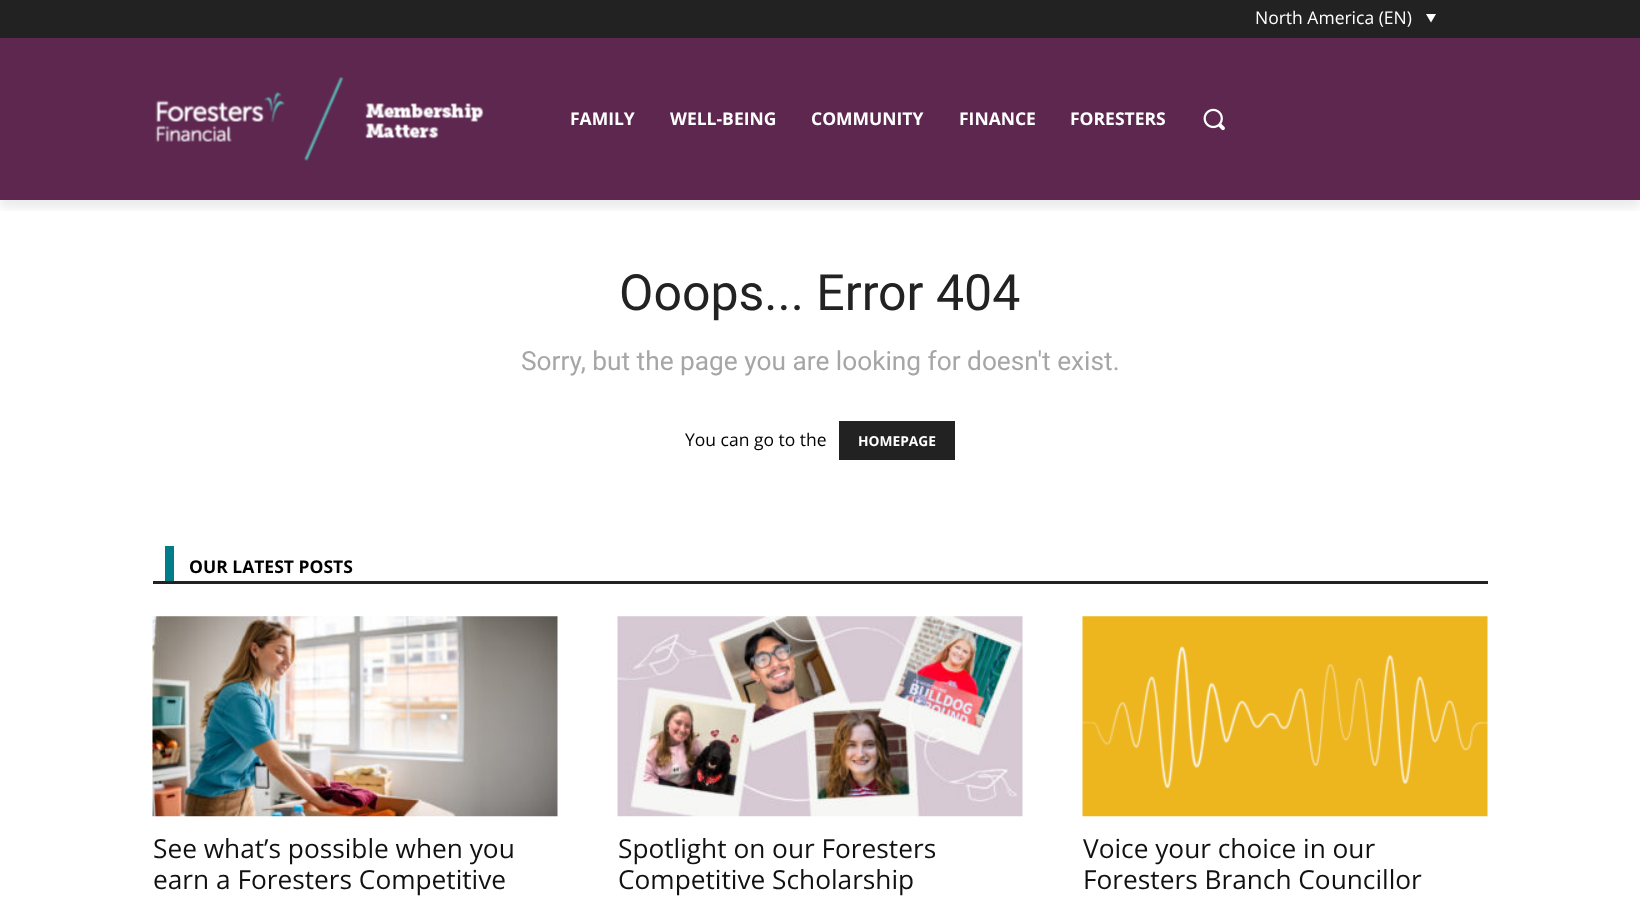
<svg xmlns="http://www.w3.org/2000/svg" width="1640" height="903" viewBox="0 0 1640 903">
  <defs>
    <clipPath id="clip1"><path d="M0 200h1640v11H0z"/></clipPath>
  </defs>
  <rect width="100%" height="100%" fill="#fff"/>
  <path d="M0 0h1640v38H0z" fill="#222"/>
  <path d="M1426 14H1436L1431 22.5Z" fill="#fff"/>
  <path d="M0 38h1640v162H0z" fill="#5e2750"/>
  <image x="155" y="77" width="329" height="84" href="img/1.png"/>
  <g clip-path="url(#clip1)">
    <path d="M0 8h1640v200H0z" fill="#00000014" filter="blur(5px)"/>
  </g>
  <image x="1203" y="108" width="22" height="23" href="img/2.png"/>
  <path d="M839 421h116v39H839z" fill="#222"/>
  <path d="M153 581h1335v3H153z" fill="#222"/>
  <path d="M165 546h9v35H165z" fill="#017c89"/>
  <image x="152" y="616" width="406" height="201" href="img/3.png"/>
  <image x="617" y="616" width="406" height="201" href="img/4.png"/>
  <image x="1082" y="616" width="406" height="201" href="img/5.png"/>
  <text x="1255" y="24" font-family="Open Sans" font-size="17.5" fill="#fff">North America (EN)</text>
  <g font-family="Open Sans" font-size="17.5" font-weight="bold" fill="#fff">
    <text x="570" y="125">FAMILY</text>
    <text x="670" y="125">WELL-BEING</text>
    <text x="811" y="125">COMMUNITY</text>
    <text x="959" y="125">FINANCE</text>
    <text x="1070" y="125">FORESTERS</text>
  </g>
  <text x="619" y="310" font-family="Roboto" font-size="50" fill="#222">Ooops... Error 404</text>
  <text x="521" y="370" font-family="Roboto" font-size="26.25" fill="#a6a6a6">Sorry, but the page you are looking for doesn't exist.</text>
  <text x="685" y="446" font-family="Open Sans" font-size="17.5" fill="#000">You can go to the</text>
  <text x="858" y="446" font-family="Open Sans" font-size="13.75" font-weight="bold" fill="#fff">HOMEPAGE</text>
  <text x="189" y="573" font-family="Open Sans" font-size="17.5" font-weight="bold" fill="#000">OUR LATEST POSTS</text>
  <g font-family="Open Sans" font-size="26.25" fill="#111">
    <text x="153" y="858">See what’s possible when you</text>
    <text x="153" y="889">earn a Foresters Competitive</text>
    <text x="618" y="858">Spotlight on our Foresters</text>
    <text x="618" y="889">Competitive Scholarship</text>
    <text x="1083" y="858">Voice your choice in our</text>
    <text x="1083" y="889">Foresters Branch Councillor</text>
  </g>
</svg>
